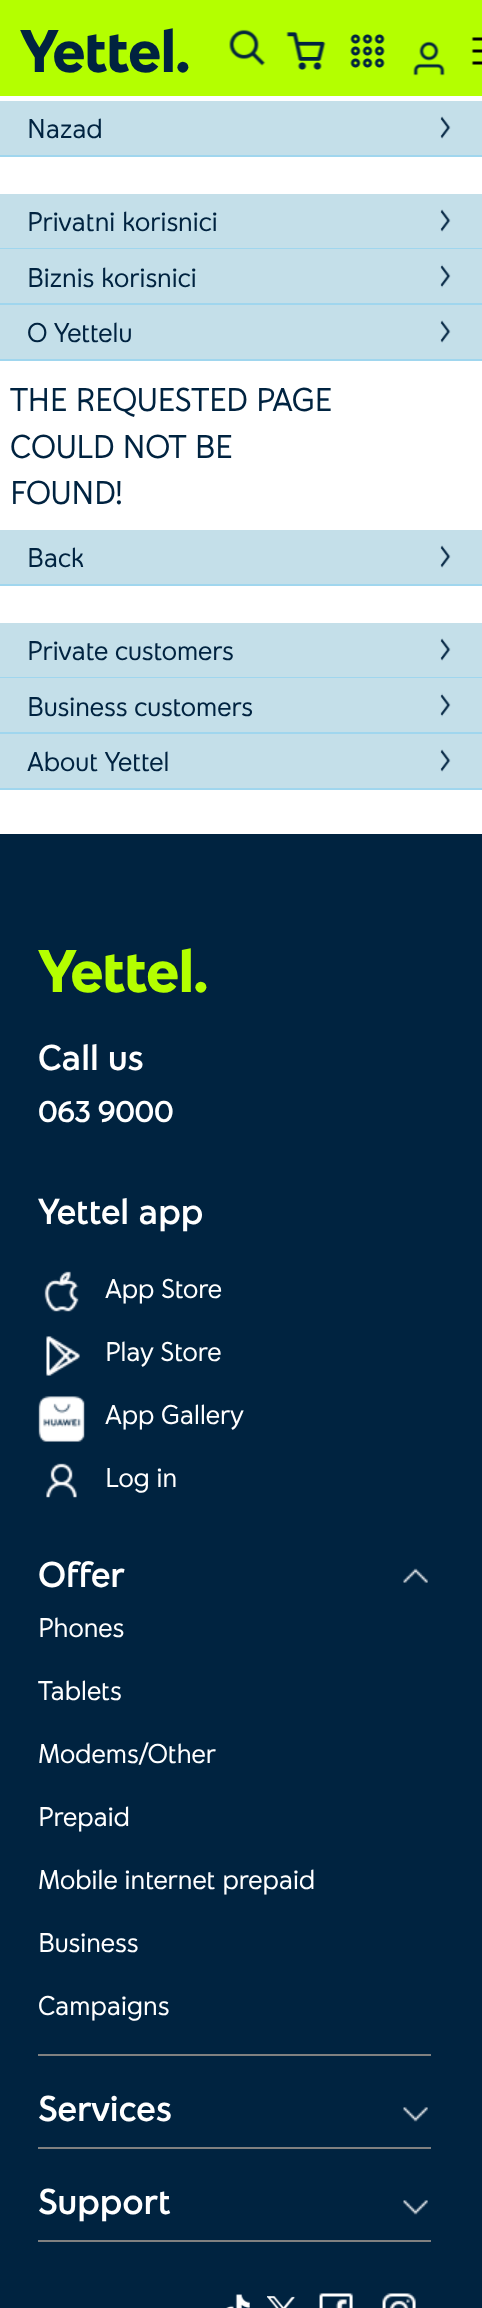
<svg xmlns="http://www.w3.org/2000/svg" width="482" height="2308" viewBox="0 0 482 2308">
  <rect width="100%" height="100%" fill="#fff"/>
  <path d="M0 0h482v96H0z" fill="#b4ff00"/>
  <image x="229" y="29" width="37" height="37" href="img/1.png"/>
  <image x="286" y="32" width="40" height="38" href="img/2.png"/>
  <image x="350" y="34" width="35" height="34" href="img/3.png"/>
  <image x="413" y="41" width="32" height="35" href="img/4.png"/>
  <image x="471" y="37" width="11" height="28" href="img/5.png"/>
  <path d="M0 101h482v54H0z" fill="#c4dfe9"/>
  <path d="M0 155h482v2H0z" fill="#a0d6ee"/>
  <image x="440" y="116" width="11" height="23" href="img/6.png"/>
  <path d="M0 194h482v54H0z" fill="#c4dfe9"/>
  <path d="M0 248h482v1H0z" fill="#a0d6ee"/>
  <image x="440" y="209" width="11" height="23" href="img/6.png"/>
  <path d="M0 249h482v54H0z" fill="#c4dfe9"/>
  <path d="M0 303h482v2H0z" fill="#a0d6ee"/>
  <image x="440" y="264" width="11" height="24" href="img/7.png"/>
  <path d="M0 305h482v54H0z" fill="#c4dfe9"/>
  <path d="M0 359h482v2H0z" fill="#a0d6ee"/>
  <image x="440" y="320" width="11" height="23" href="img/6.png"/>
  <path d="M0 530h482v54H0z" fill="#c4dfe9"/>
  <path d="M0 584h482v2H0z" fill="#a0d6ee"/>
  <image x="440" y="545" width="11" height="23" href="img/6.png"/>
  <path d="M0 623h482v54H0z" fill="#c4dfe9"/>
  <path d="M0 677h482v1H0z" fill="#a0d6ee"/>
  <image x="440" y="638" width="11" height="23" href="img/6.png"/>
  <path d="M0 678h482v54H0z" fill="#c4dfe9"/>
  <path d="M0 732h482v2H0z" fill="#a0d6ee"/>
  <image x="440" y="693" width="11" height="24" href="img/7.png"/>
  <path d="M0 734h482v54H0z" fill="#c4dfe9"/>
  <path d="M0 788h482v2H0z" fill="#a0d6ee"/>
  <image x="440" y="749" width="11" height="23" href="img/6.png"/>
  <path d="M0 834h482v1474H0z" fill="#002340"/>
  <image x="44" y="1271" width="35" height="41" href="img/8.png"/>
  <image x="46" y="1336" width="34" height="40" href="img/9.png"/>
  <image x="38" y="1396" width="47" height="46" href="img/10.png"/>
  <image x="46" y="1463" width="31" height="35" href="img/11.png"/>
  <image x="403" y="1568" width="25" height="15" href="img/12.png"/>
  <path d="M38 2054h393v2H38z" fill="#808080"/>
  <image x="403" y="2107" width="25" height="15" href="img/13.png"/>
  <path d="M38 2147h393v2H38z" fill="#808080"/>
  <image x="403" y="2200" width="25" height="15" href="img/13.png"/>
  <path d="M38 2240h393v2H38z" fill="#808080"/>
  <image x="226" y="2294" width="24" height="14" href="img/14.png"/>
  <image x="267" y="2296" width="29" height="12" href="img/15.png"/>
  <image x="319" y="2293" width="34" height="15" href="img/16.png"/>
  <image x="382" y="2293" width="34" height="15" href="img/17.png"/>
  <text x="20" y="72" font-family="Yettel" font-size="60" font-weight="bold" letter-spacing="-1.5" fill="#002340">Yettel.</text>
  <g font-family="Yettel" font-size="27" font-weight="300" letter-spacing="-0.4" fill="#002340">
    <text x="27" y="138">Nazad</text>
    <text x="27" y="231">Privatni korisnici</text>
    <text x="27" y="287">Biznis korisnici</text>
    <text x="27" y="342">O Yettelu</text>
  </g>
  <g font-family="Yettel" font-size="33" font-weight="300" letter-spacing="-0.4" fill="#002340">
    <text x="10" y="411">THE REQUESTED PAGE</text>
    <text x="10" y="458">COULD NOT BE</text>
    <text x="10" y="504">FOUND!</text>
  </g>
  <g font-family="Yettel" font-size="27" font-weight="300" letter-spacing="-0.4" fill="#002340">
    <text x="27" y="567">Back</text>
    <text x="27" y="660">Private customers</text>
    <text x="27" y="716">Business customers</text>
    <text x="27" y="771">About Yettel</text>
  </g>
  <text x="38" y="992" font-family="Yettel" font-size="60" font-weight="bold" letter-spacing="-1.5" fill="#b4ff00">Yettel.</text>
  <text x="38" y="1070" font-family="Yettel" font-size="36" letter-spacing="-0.4" fill="#fff">Call us</text>
  <text x="38" y="1122" font-family="Yettel" font-size="30" letter-spacing="-0.4" fill="#fff">063 9000</text>
  <text x="38" y="1224" font-family="Yettel" font-size="36" letter-spacing="-0.4" fill="#fff">Yettel app</text>
  <g font-family="Yettel" font-size="27" font-weight="300" letter-spacing="-0.4" fill="#fff">
    <text x="105" y="1298">App Store</text>
    <text x="105" y="1361">Play Store</text>
    <text x="105" y="1424">App Gallery</text>
    <text x="105" y="1487">Log in</text>
  </g>
  <text x="38" y="1587" font-family="Yettel" font-size="36" letter-spacing="-0.4" fill="#fff">Offer</text>
  <g font-family="Yettel" font-size="27" font-weight="300" letter-spacing="-0.4" fill="#fff">
    <text x="38" y="1637">Phones</text>
    <text x="38" y="1700">Tablets</text>
    <text x="38" y="1763">Modems/Other</text>
    <text x="38" y="1826">Prepaid</text>
    <text x="38" y="1889">Mobile internet prepaid</text>
    <text x="38" y="1952">Business</text>
    <text x="38" y="2015">Campaigns</text>
  </g>
  <g font-family="Yettel" font-size="36" letter-spacing="-0.4" fill="#fff">
    <text x="38" y="2121">Services</text>
    <text x="38" y="2214">Support</text>
  </g>
</svg>
